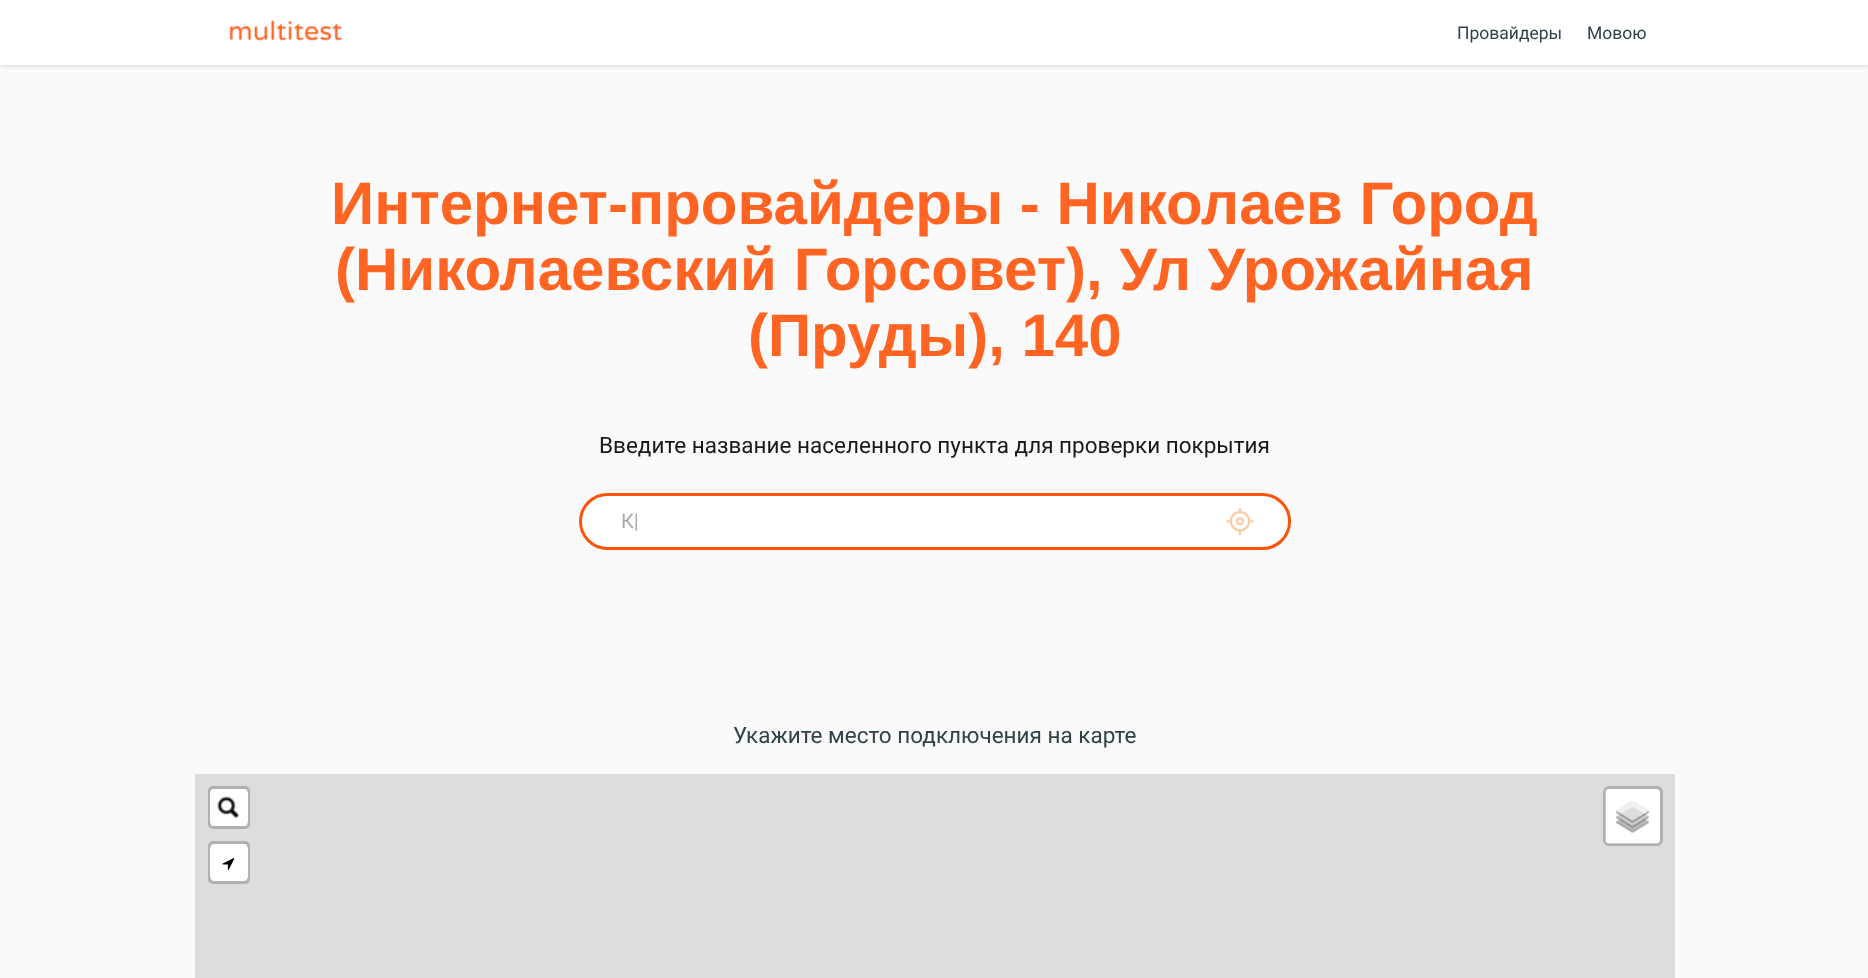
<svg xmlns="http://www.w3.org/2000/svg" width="1868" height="978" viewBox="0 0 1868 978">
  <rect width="100%" height="100%" fill="#fafafa"/>
  <path d="M0 1h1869v65H0z" fill="#00000026" filter="blur(2px)"/>
  <path d="M0 0h1868v65H0z" fill="#fff"/>
  <image x="229" y="20" width="113" height="21" href="img/1.png"/>
  <rect x="580.5" y="494.5" width="709" height="54" rx="27" fill="#fff" stroke="#ff5209" stroke-width="3"/>
  <image x="1226" y="508" width="28" height="27" href="img/2.png"/>
  <path d="M195 774h1480v204H195z" fill="#ddd"/>
  <rect x="210" y="789" width="38" height="37" rx="2.5" fill="#f8f8f8"/>
  <rect x="209.5" y="787.5" width="39" height="40" rx="3.5" fill="none" stroke="#00000033" stroke-width="3"/>
  <rect x="210" y="789" width="38" height="37" rx="5" fill="#fff"/>
  <image x="217" y="796" width="22" height="22" href="img/3.png"/>
  <rect x="209.5" y="842.5" width="39" height="40" rx="3.5" fill="none" stroke="#b1b1b1" stroke-width="3"/>
  <rect x="210" y="844" width="38" height="37" rx="5" fill="#fff"/>
  <image x="222" y="858" width="13" height="12" href="img/4.png"/>
  <rect x="1605" y="789" width="55" height="55" rx="4" fill="#fff"/>
  <rect x="1604.5" y="787.5" width="57" height="57" rx="4.5" fill="none" stroke="#00000033" stroke-width="3"/>
  <image x="1616" y="801" width="33" height="32" href="img/5.png"/>
  <g font-family="Roboto" font-size="17.5" fill="#2e4348">
    <text x="1457" y="39">Провайдеры</text>
    <text x="1587" y="39">Мовою</text>
  </g>
  <g font-family="Liberation Sans" font-size="60" font-weight="bold" fill="#ff6423">
    <text x="331" y="224">Интернет-провайдеры - Николаев Город</text>
    <text x="335" y="290">(Николаевский Горсовет), Ул Урожайная</text>
    <text x="748" y="356">(Пруды), 140</text>
  </g>
  <text x="599" y="453" font-family="Roboto" font-size="22.5" fill="#191919">Введите название населенного пункта для проверки покрытия</text>
  <text x="621" y="528" font-family="Roboto" font-size="20" fill="#a9a9a9">К|</text>
  <text x="733" y="743" font-family="Roboto" font-size="22.5" fill="#2e4348">Укажите место подключения на карте</text>
</svg>
